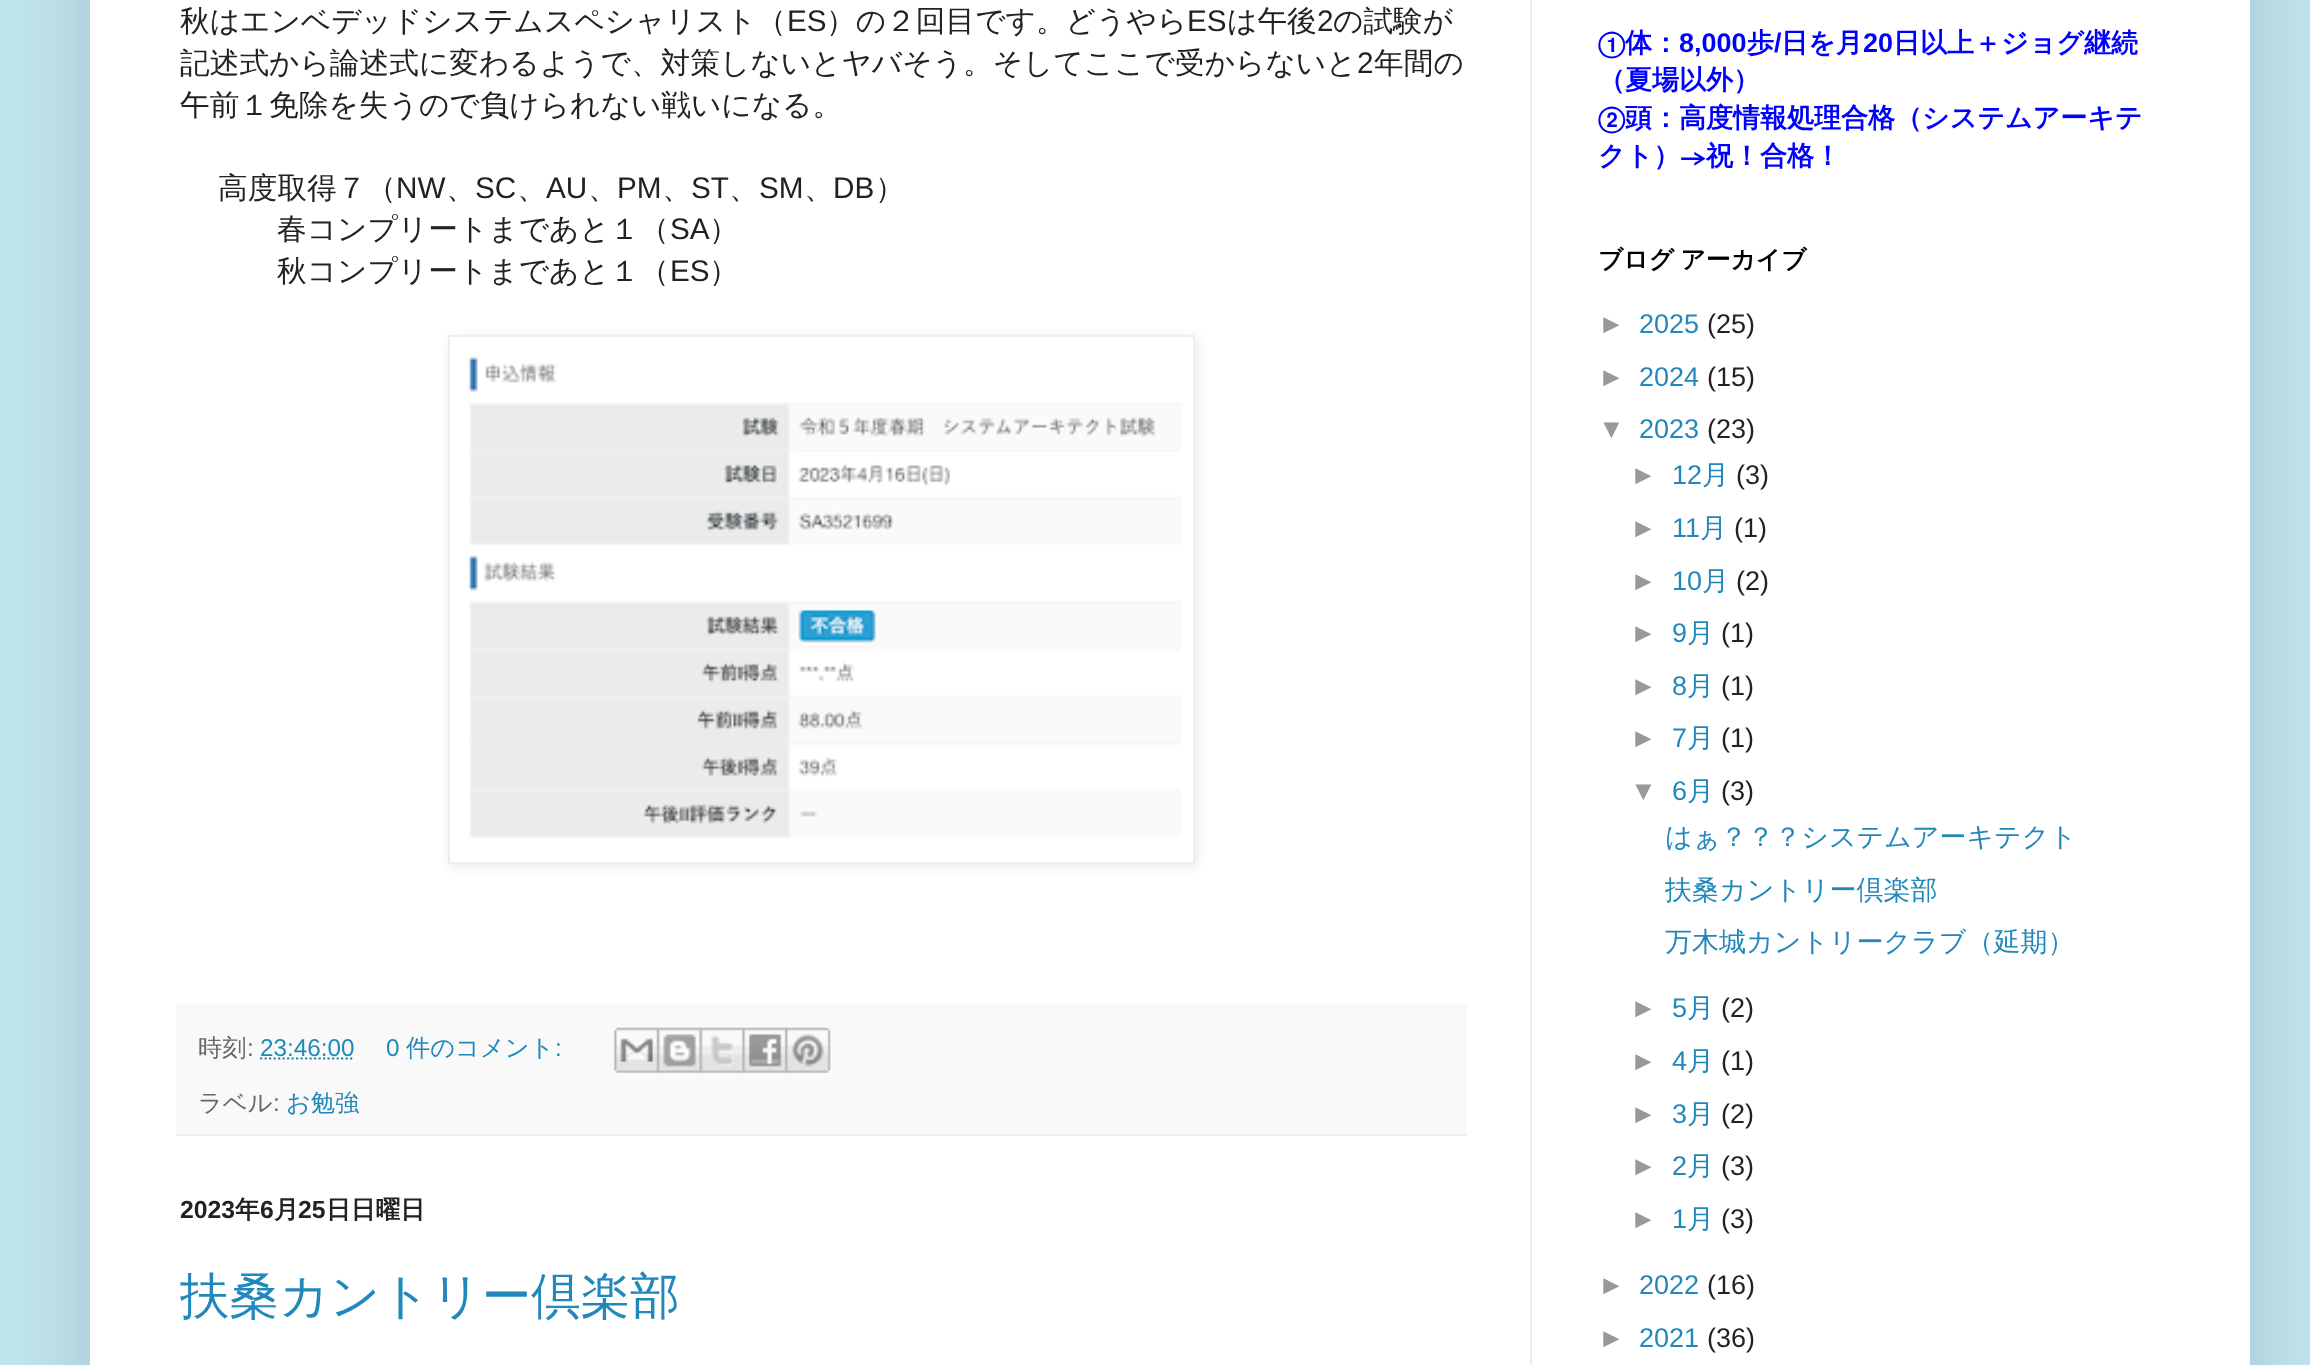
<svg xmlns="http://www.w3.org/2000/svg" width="2310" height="1365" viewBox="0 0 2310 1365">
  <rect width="100%" height="100%" fill="#c1e5ef"/>
  <path d="M90 -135h2160v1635H90z" fill="#00000026" filter="blur(45px)"/>
  <path d="M90 0h2160v1365H90z" fill="#fff"/>
  <path d="M1530 0h2v1365H1530z" fill="#eee"/>
  <path d="M450 338h747v528H450z" fill="#0000001a" filter="blur(5.5px)"/>
  <path d="M449 336h745v527H449z" fill="#fff" stroke="#eee" stroke-width="2"/>
  <image x="468" y="356" width="713" height="483" href="img/1.png"/>
  <path d="M176 1004h1291v130H176z" fill="#f9f9f9"/>
  <path d="M176 1134h1291v2H176z" fill="#eee"/>
  <path d="M260 1058.5H354.5" fill="none" stroke="#28b" stroke-width="2.2" stroke-dasharray="2.25 2.25"/>
  <image x="614" y="1027" width="46" height="46" href="img/2.png"/>
  <image x="657" y="1027" width="45" height="46" href="img/3.png"/>
  <image x="699" y="1027" width="46" height="46" href="img/4.png"/>
  <image x="742" y="1027" width="46" height="46" href="img/5.png"/>
  <image x="785" y="1027" width="46" height="46" href="img/6.png"/>
  <text x="180" y="31" font-family="WenQuanYi Zen Hei" font-size="29.7" font-weight="500" fill="#222">秋はエンベデッドシステムスペシャリスト（</text>
  <text x="787" y="31" font-family="Liberation Sans" font-size="29.7" fill="#222">ES</text>
  <text x="826" y="31" font-family="WenQuanYi Zen Hei" font-size="29.7" font-weight="500" fill="#222">）の２回目です。どうやら</text>
  <text x="1187" y="31" font-family="Liberation Sans" font-size="29.7" fill="#222">ES</text>
  <text x="1227" y="31" font-family="WenQuanYi Zen Hei" font-size="29.7" font-weight="500" fill="#222">は午後</text>
  <text x="1317" y="31" font-family="Liberation Sans" font-size="29.7" fill="#222">2</text>
  <g font-family="WenQuanYi Zen Hei" font-size="29.7" font-weight="500" fill="#222">
    <text x="1333" y="31">の試験が</text>
    <text x="180" y="73">記述式から論述式に変わるようで、対策しないとヤバそう。そしてここで受からないと</text>
  </g>
  <text x="1357" y="73" font-family="Liberation Sans" font-size="29.7" fill="#222">2</text>
  <g font-family="WenQuanYi Zen Hei" font-size="29.7" font-weight="500" fill="#222">
    <text x="1374" y="73">年間の</text>
    <text x="180" y="115">午前１免除を失うので負けられない戦いになる。</text>
    <text x="218" y="198">高度取得７（</text>
  </g>
  <text x="396" y="198" font-family="Liberation Sans" font-size="29.7" fill="#222">NW</text>
  <text x="446" y="198" font-family="WenQuanYi Zen Hei" font-size="29.7" font-weight="500" fill="#222">、</text>
  <text x="475" y="198" font-family="Liberation Sans" font-size="29.7" fill="#222">SC</text>
  <text x="517" y="198" font-family="WenQuanYi Zen Hei" font-size="29.7" font-weight="500" fill="#222">、</text>
  <text x="546" y="198" font-family="Liberation Sans" font-size="29.7" fill="#222">AU</text>
  <text x="588" y="198" font-family="WenQuanYi Zen Hei" font-size="29.7" font-weight="500" fill="#222">、</text>
  <text x="617" y="198" font-family="Liberation Sans" font-size="29.7" fill="#222">PM</text>
  <text x="662" y="198" font-family="WenQuanYi Zen Hei" font-size="29.7" font-weight="500" fill="#222">、</text>
  <text x="691" y="198" font-family="Liberation Sans" font-size="29.7" fill="#222">ST</text>
  <text x="729" y="198" font-family="WenQuanYi Zen Hei" font-size="29.7" font-weight="500" fill="#222">、</text>
  <text x="759" y="198" font-family="Liberation Sans" font-size="29.7" fill="#222">SM</text>
  <text x="804" y="198" font-family="WenQuanYi Zen Hei" font-size="29.7" font-weight="500" fill="#222">、</text>
  <text x="833" y="198" font-family="Liberation Sans" font-size="29.7" fill="#222">DB</text>
  <g font-family="WenQuanYi Zen Hei" font-size="29.7" font-weight="500" fill="#222">
    <text x="875" y="198">）</text>
    <text x="277" y="239">春コンプリートまであと１（</text>
  </g>
  <text x="670" y="239" font-family="Liberation Sans" font-size="29.7" fill="#222">SA</text>
  <g font-family="WenQuanYi Zen Hei" font-size="29.7" font-weight="500" fill="#222">
    <text x="709" y="239">）</text>
    <text x="277" y="281">秋コンプリートまであと１（</text>
  </g>
  <text x="670" y="281" font-family="Liberation Sans" font-size="29.7" fill="#222">ES</text>
  <text x="709" y="281" font-family="WenQuanYi Zen Hei" font-size="29.7" font-weight="500" fill="#222">）</text>
  <text x="198" y="1056" font-family="WenQuanYi Zen Hei" font-size="24.25" font-weight="500" fill="#666">時刻</text>
  <text x="247" y="1056" font-family="Liberation Sans" font-size="24.25" fill="#666">:</text>
  <g font-family="Liberation Sans" font-size="24.25" fill="#28b">
    <text x="260" y="1056">23:46:00</text>
    <text x="386" y="1056">0</text>
  </g>
  <text x="406" y="1056" font-family="WenQuanYi Zen Hei" font-size="24.25" font-weight="500" fill="#28b">件のコメント</text>
  <text x="555" y="1056" font-family="Liberation Sans" font-size="24.25" fill="#28b">:</text>
  <text x="198" y="1111" font-family="WenQuanYi Zen Hei" font-size="24.25" font-weight="500" fill="#666">ラベル</text>
  <text x="273" y="1111" font-family="Liberation Sans" font-size="24.25" fill="#666">:</text>
  <text x="286" y="1111" font-family="WenQuanYi Zen Hei" font-size="24.25" font-weight="500" fill="#28b">お勉強</text>
  <text x="180" y="1218" font-family="Liberation Sans" font-size="24.75" font-weight="bold" fill="#222">2023</text>
  <text x="235" y="1218" font-family="WenQuanYi Zen Hei" font-size="24.75" font-weight="bold" fill="#222">年</text>
  <text x="260" y="1218" font-family="Liberation Sans" font-size="24.75" font-weight="bold" fill="#222">6</text>
  <text x="274" y="1218" font-family="WenQuanYi Zen Hei" font-size="24.75" font-weight="bold" fill="#222">月</text>
  <text x="298" y="1218" font-family="Liberation Sans" font-size="24.75" font-weight="bold" fill="#222">25</text>
  <text x="326" y="1218" font-family="WenQuanYi Zen Hei" font-size="24.75" font-weight="bold" fill="#222">日日曜日</text>
  <text x="180" y="1313" font-family="WenQuanYi Zen Hei" font-size="49.5" font-weight="500" fill="#28b">扶桑カントリー倶楽部</text>
  <text x="1598" y="52" font-family="FreeSans" font-size="27" font-weight="600" fill="#00f">①</text>
  <text x="1625" y="52" font-family="WenQuanYi Zen Hei" font-size="27" font-weight="bold" fill="#00f">体：</text>
  <text x="1679" y="52" font-family="Liberation Sans" font-size="27" font-weight="bold" fill="#00f">8,000</text>
  <text x="1747" y="52" font-family="WenQuanYi Zen Hei" font-size="27" font-weight="bold" fill="#00f">歩</text>
  <text x="1774" y="52" font-family="Liberation Sans" font-size="27" font-weight="bold" fill="#00f">/</text>
  <text x="1781" y="52" font-family="WenQuanYi Zen Hei" font-size="27" font-weight="bold" fill="#00f">日を月</text>
  <text x="1863" y="52" font-family="Liberation Sans" font-size="27" font-weight="bold" fill="#00f">20</text>
  <g font-family="WenQuanYi Zen Hei" font-size="27" font-weight="bold" fill="#00f">
    <text x="1893" y="52">日以上＋ジョグ継続</text>
    <text x="1598" y="89">（夏場以外）</text>
  </g>
  <text x="1598" y="127" font-family="FreeSans" font-size="27" font-weight="600" fill="#00f">②</text>
  <g font-family="WenQuanYi Zen Hei" font-size="27" font-weight="bold" fill="#00f">
    <text x="1625" y="127">頭：高度情報処理合格（システムアーキテ</text>
    <text x="1598" y="165">クト）</text>
  </g>
  <text x="1680" y="165" font-family="FreeSans" font-size="27" font-weight="600" fill="#00f">→</text>
  <text x="1706" y="165" font-family="WenQuanYi Zen Hei" font-size="27" font-weight="bold" fill="#00f">祝！合格！</text>
  <text x="1598" y="268" word-spacing="-1" font-family="WenQuanYi Zen Hei" font-size="24.75" font-weight="bold" fill="#000">ブログ アーカイブ</text>
  <text x="1598" y="333" font-family="Liberation Sans" font-size="27" fill="#999">►</text>
  <text x="1639" y="333" font-family="Liberation Sans" font-size="27" fill="#28b">2025</text>
  <text x="1707" y="333" font-family="Liberation Sans" font-size="27" fill="#222">(25)</text>
  <text x="1598" y="386" font-family="Liberation Sans" font-size="27" fill="#999">►</text>
  <text x="1639" y="386" font-family="Liberation Sans" font-size="27" fill="#28b">2024</text>
  <text x="1707" y="386" font-family="Liberation Sans" font-size="27" fill="#222">(15)</text>
  <text x="1598" y="438" font-family="Liberation Sans" font-size="27" fill="#999">▼</text>
  <text x="1639" y="438" font-family="Liberation Sans" font-size="27" fill="#28b">2023</text>
  <text x="1707" y="438" font-family="Liberation Sans" font-size="27" fill="#222">(23)</text>
  <text x="1630" y="484" font-family="Liberation Sans" font-size="27" fill="#999">►</text>
  <text x="1672" y="484" font-family="Liberation Sans" font-size="27" fill="#28b">12</text>
  <text x="1702" y="484" font-family="WenQuanYi Zen Hei" font-size="27" font-weight="500" fill="#28b">月</text>
  <text x="1736" y="484" font-family="Liberation Sans" font-size="27" fill="#222">(3)</text>
  <text x="1630" y="537" font-family="Liberation Sans" font-size="27" fill="#999">►</text>
  <text x="1672" y="537" font-family="Liberation Sans" font-size="27" fill="#28b">11</text>
  <text x="1700" y="537" font-family="WenQuanYi Zen Hei" font-size="27" font-weight="500" fill="#28b">月</text>
  <text x="1734" y="537" font-family="Liberation Sans" font-size="27" fill="#222">(1)</text>
  <text x="1630" y="590" font-family="Liberation Sans" font-size="27" fill="#999">►</text>
  <text x="1672" y="590" font-family="Liberation Sans" font-size="27" fill="#28b">10</text>
  <text x="1702" y="590" font-family="WenQuanYi Zen Hei" font-size="27" font-weight="500" fill="#28b">月</text>
  <text x="1736" y="590" font-family="Liberation Sans" font-size="27" fill="#222">(2)</text>
  <text x="1630" y="642" font-family="Liberation Sans" font-size="27" fill="#999">►</text>
  <text x="1672" y="642" font-family="Liberation Sans" font-size="27" fill="#28b">9</text>
  <text x="1687" y="642" font-family="WenQuanYi Zen Hei" font-size="27" font-weight="500" fill="#28b">月</text>
  <text x="1721" y="642" font-family="Liberation Sans" font-size="27" fill="#222">(1)</text>
  <text x="1630" y="695" font-family="Liberation Sans" font-size="27" fill="#999">►</text>
  <text x="1672" y="695" font-family="Liberation Sans" font-size="27" fill="#28b">8</text>
  <text x="1687" y="695" font-family="WenQuanYi Zen Hei" font-size="27" font-weight="500" fill="#28b">月</text>
  <text x="1721" y="695" font-family="Liberation Sans" font-size="27" fill="#222">(1)</text>
  <text x="1630" y="747" font-family="Liberation Sans" font-size="27" fill="#999">►</text>
  <text x="1672" y="747" font-family="Liberation Sans" font-size="27" fill="#28b">7</text>
  <text x="1687" y="747" font-family="WenQuanYi Zen Hei" font-size="27" font-weight="500" fill="#28b">月</text>
  <text x="1721" y="747" font-family="Liberation Sans" font-size="27" fill="#222">(1)</text>
  <text x="1630" y="800" font-family="Liberation Sans" font-size="27" fill="#999">▼</text>
  <text x="1672" y="800" font-family="Liberation Sans" font-size="27" fill="#28b">6</text>
  <text x="1687" y="800" font-family="WenQuanYi Zen Hei" font-size="27" font-weight="500" fill="#28b">月</text>
  <text x="1721" y="800" font-family="Liberation Sans" font-size="27" fill="#222">(3)</text>
  <g font-family="WenQuanYi Zen Hei" font-size="27" font-weight="500" fill="#28b">
    <text x="1665" y="846">はぁ？？？システムアーキテクト</text>
    <text x="1665" y="899">扶桑カントリー倶楽部</text>
    <text x="1665" y="951">万木城カントリークラブ（延期）</text>
  </g>
  <text x="1630" y="1017" font-family="Liberation Sans" font-size="27" fill="#999">►</text>
  <text x="1672" y="1017" font-family="Liberation Sans" font-size="27" fill="#28b">5</text>
  <text x="1687" y="1017" font-family="WenQuanYi Zen Hei" font-size="27" font-weight="500" fill="#28b">月</text>
  <text x="1721" y="1017" font-family="Liberation Sans" font-size="27" fill="#222">(2)</text>
  <text x="1630" y="1070" font-family="Liberation Sans" font-size="27" fill="#999">►</text>
  <text x="1672" y="1070" font-family="Liberation Sans" font-size="27" fill="#28b">4</text>
  <text x="1687" y="1070" font-family="WenQuanYi Zen Hei" font-size="27" font-weight="500" fill="#28b">月</text>
  <text x="1721" y="1070" font-family="Liberation Sans" font-size="27" fill="#222">(1)</text>
  <text x="1630" y="1123" font-family="Liberation Sans" font-size="27" fill="#999">►</text>
  <text x="1672" y="1123" font-family="Liberation Sans" font-size="27" fill="#28b">3</text>
  <text x="1687" y="1123" font-family="WenQuanYi Zen Hei" font-size="27" font-weight="500" fill="#28b">月</text>
  <text x="1721" y="1123" font-family="Liberation Sans" font-size="27" fill="#222">(2)</text>
  <text x="1630" y="1175" font-family="Liberation Sans" font-size="27" fill="#999">►</text>
  <text x="1672" y="1175" font-family="Liberation Sans" font-size="27" fill="#28b">2</text>
  <text x="1687" y="1175" font-family="WenQuanYi Zen Hei" font-size="27" font-weight="500" fill="#28b">月</text>
  <text x="1721" y="1175" font-family="Liberation Sans" font-size="27" fill="#222">(3)</text>
  <text x="1630" y="1228" font-family="Liberation Sans" font-size="27" fill="#999">►</text>
  <text x="1672" y="1228" font-family="Liberation Sans" font-size="27" fill="#28b">1</text>
  <text x="1687" y="1228" font-family="WenQuanYi Zen Hei" font-size="27" font-weight="500" fill="#28b">月</text>
  <text x="1721" y="1228" font-family="Liberation Sans" font-size="27" fill="#222">(3)</text>
  <text x="1598" y="1294" font-family="Liberation Sans" font-size="27" fill="#999">►</text>
  <text x="1639" y="1294" font-family="Liberation Sans" font-size="27" fill="#28b">2022</text>
  <text x="1707" y="1294" font-family="Liberation Sans" font-size="27" fill="#222">(16)</text>
  <text x="1598" y="1347" font-family="Liberation Sans" font-size="27" fill="#999">►</text>
  <text x="1639" y="1347" font-family="Liberation Sans" font-size="27" fill="#28b">2021</text>
  <text x="1707" y="1347" font-family="Liberation Sans" font-size="27" fill="#222">(36)</text>
</svg>
